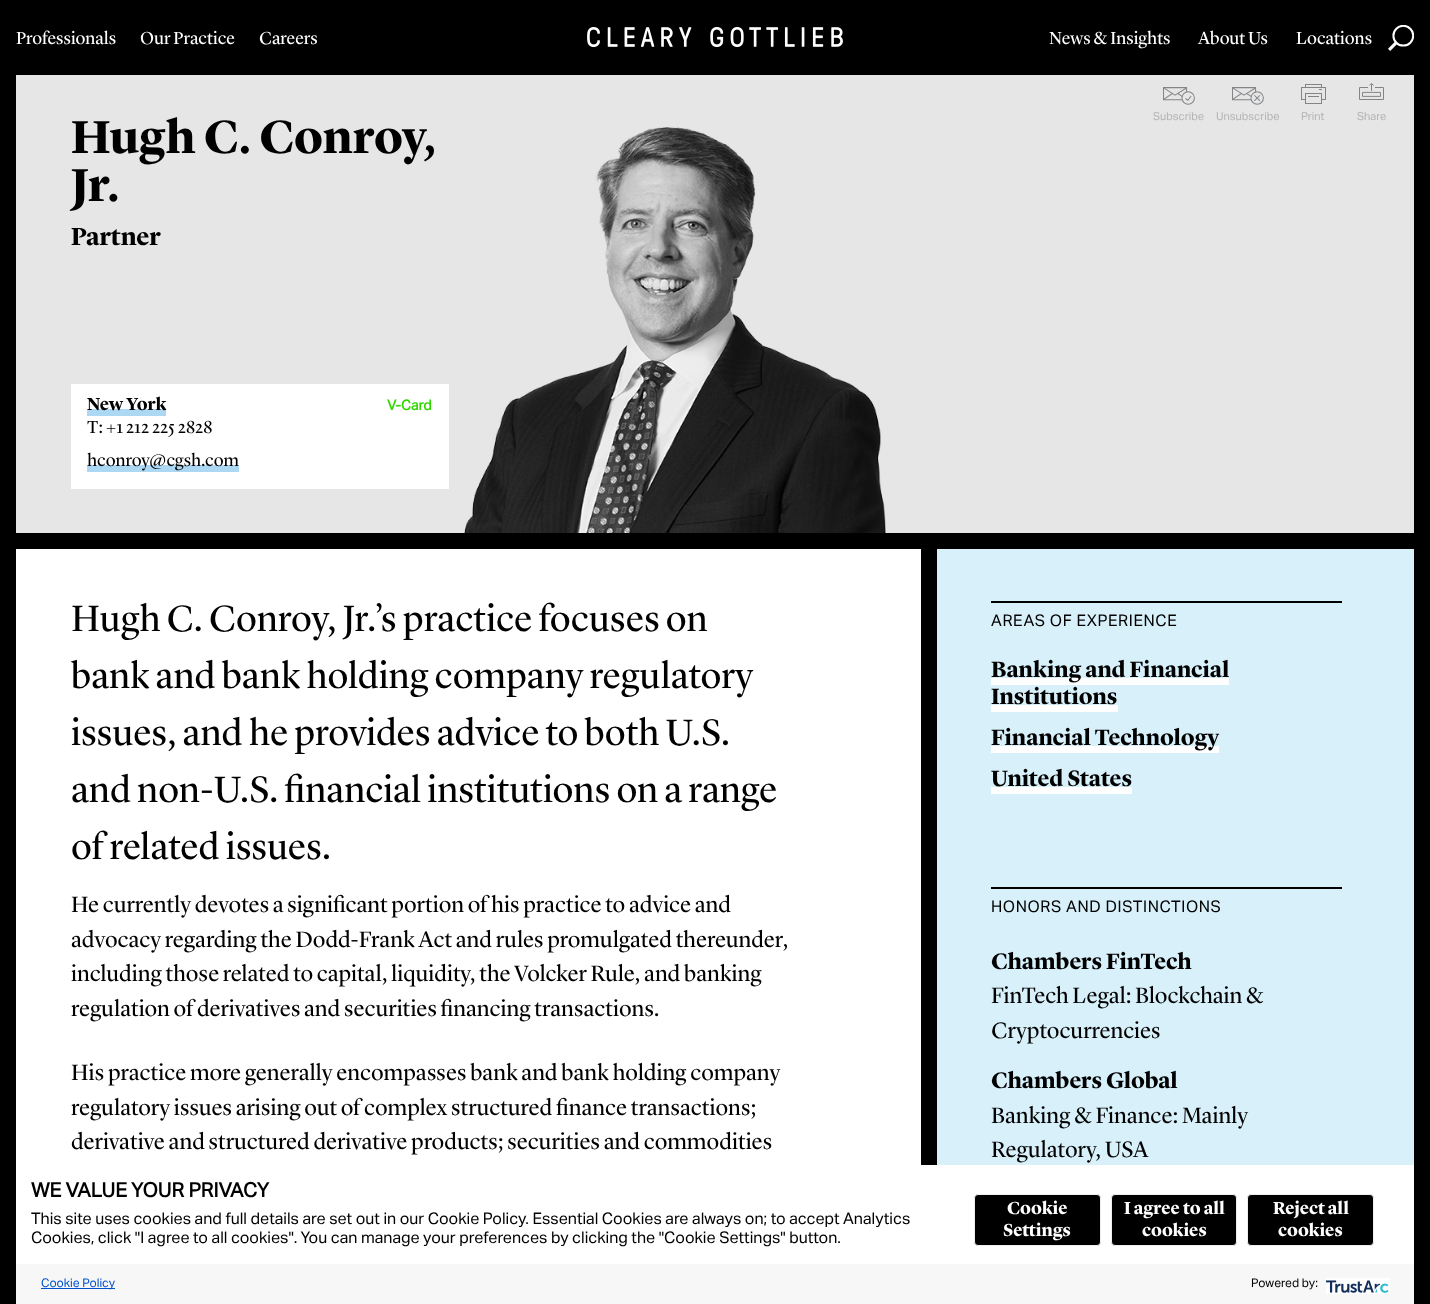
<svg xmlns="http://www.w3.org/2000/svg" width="1430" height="1304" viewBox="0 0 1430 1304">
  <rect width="100%" height="100%" fill="#000"/>
  <image x="587" y="27" width="256" height="20" href="img/1.png"/>
  <image x="1388" y="25" width="26" height="26" href="img/2.png"/>
  <path d="M16 75h1398v458H16z" fill="#e6e6e6"/>
  <image x="1163" y="87" width="32" height="18" href="img/3.png"/>
  <image x="1232" y="87" width="32" height="18" href="img/4.png"/>
  <image x="1301" y="84" width="25" height="20" href="img/5.png"/>
  <image x="1359" y="83" width="25" height="17" href="img/6.png"/>
  <path d="M71 384h378v105H71z" fill="#fff"/>
  <path d="M87 409h79v7H87z" fill="#acd8f3"/>
  <path d="M87 465h152v7H87z" fill="#acd8f3"/>
  <image x="464" y="127" width="422" height="406" href="img/7.png"/>
  <path d="M937 549h477v616H937z" fill="#d7f0fa"/>
  <path d="M16 549h905v616H16z" fill="#fff"/>
  <path d="M991 601h351v2H991z" fill="#000"/>
  <path d="M991 678h238v7H991z" fill="#fff"/>
  <path d="M991 705h127v7H991z" fill="#fff"/>
  <path d="M991 746h228v7H991z" fill="#fff"/>
  <path d="M991 787h141v7H991z" fill="#fff"/>
  <path d="M991 887h351v2H991z" fill="#000"/>
  <path d="M16 1165h1398v99H16z" fill="#fff"/>
  <rect x="974.5" y="1194.5" width="126" height="51" rx="3.5" fill="#000" stroke="#eee"/>
  <rect x="1111.5" y="1194.5" width="125" height="51" rx="3.5" fill="#000" stroke="#eee"/>
  <rect x="1247.5" y="1194.5" width="126" height="51" rx="3.5" fill="#000" stroke="#eee"/>
  <path d="M16 1264h1398v40H16z" fill="#f7f7f7"/>
  <path d="M41 1288h74v1H41z" fill="#0052cc"/>
  <image x="1326" y="1278" width="64" height="16" href="img/8.png"/>
  <g font-family="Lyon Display" font-size="18" fill="#fff">
    <text x="16" y="44">Professionals</text>
    <text x="140" y="44">Our Practice</text>
    <text x="259" y="44">Careers</text>
    <text x="1049" y="44">News &amp; Insights</text>
    <text x="1198" y="44">About Us</text>
    <text x="1296" y="44">Locations</text>
  </g>
  <g font-family="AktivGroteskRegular" font-size="11" fill="#b4b4b4">
    <text x="1153" y="120">Subscribe</text>
    <text x="1216" y="120">Unsubscribe</text>
    <text x="1301" y="120">Print</text>
    <text x="1357" y="120">Share</text>
  </g>
  <g font-family="Lyon Display" font-size="48" font-weight="bold" fill="#000">
    <text x="71" y="153">Hugh C. Conroy,</text>
    <text x="71" y="201">Jr.</text>
  </g>
  <text x="71" y="245" font-family="Lyon Display" font-size="25.5" font-weight="bold" fill="#000">Partner</text>
  <text x="87" y="410" font-family="Lyon Display" font-size="18" font-weight="bold" fill="#000">New York</text>
  <text x="87" y="433" font-family="Lyon Display" font-size="18" fill="#000">T: +1 212 225 2828</text>
  <text x="387" y="410" font-family="AktivGroteskRegular" font-size="14" font-weight="bold" fill="#32d700">V-Card</text>
  <text x="87" y="466" font-family="Lyon Display" font-size="18" fill="#000">hconroy@cgsh.com</text>
  <g font-family="Lyon Display" font-size="38" fill="#000">
    <text x="71" y="631">Hugh C. Conroy, Jr.’s practice focuses on</text>
    <text x="71" y="688">bank and bank holding company regulatory</text>
    <text x="71" y="745">issues, and he provides advice to both U.S.</text>
    <text x="71" y="802">and non-U.S. financial institutions on a range</text>
    <text x="71" y="859">of related issues.</text>
  </g>
  <g font-family="Lyon Display" font-size="23" fill="#000">
    <text x="71" y="912">He currently devotes a significant portion of his practice to advice and</text>
    <text x="71" y="947">advocacy regarding the Dodd-Frank Act and rules promulgated thereunder,</text>
    <text x="71" y="981">including those related to capital, liquidity, the Volcker Rule, and banking</text>
    <text x="71" y="1016">regulation of derivatives and securities financing transactions.</text>
    <text x="71" y="1080">His practice more generally encompasses bank and bank holding company</text>
    <text x="71" y="1115">regulatory issues arising out of complex structured finance transactions;</text>
    <text x="71" y="1149">derivative and structured derivative products; securities and commodities</text>
  </g>
  <text x="991" y="626" font-family="AktivGroteskRegular" font-size="16" letter-spacing="0.6" fill="#000">AREAS OF EXPERIENCE</text>
  <g font-family="Lyon Display" font-size="23" font-weight="bold" fill="#000">
    <text x="991" y="677">Banking and Financial</text>
    <text x="991" y="704">Institutions</text>
    <text x="991" y="745">Financial Technology</text>
    <text x="991" y="786">United States</text>
  </g>
  <text x="991" y="912" font-family="AktivGroteskRegular" font-size="16" letter-spacing="0.6" fill="#000">HONORS AND DISTINCTIONS</text>
  <text x="991" y="969" font-family="Lyon Display" font-size="23" font-weight="bold" fill="#000">Chambers FinTech</text>
  <g font-family="Lyon Display" font-size="23" fill="#000">
    <text x="991" y="1003">FinTech Legal: Blockchain &amp;</text>
    <text x="991" y="1038">Cryptocurrencies</text>
  </g>
  <text x="991" y="1088" font-family="Lyon Display" font-size="23" font-weight="bold" fill="#000">Chambers Global</text>
  <g font-family="Lyon Display" font-size="23" fill="#000">
    <text x="991" y="1123">Banking &amp; Finance: Mainly</text>
    <text x="991" y="1157">Regulatory, USA</text>
  </g>
  <text x="31" y="1197" font-family="AktivGroteskRegular" font-size="20" font-weight="bold" fill="#000">WE VALUE YOUR PRIVACY</text>
  <g font-family="AktivGroteskRegular" font-size="16" fill="#000">
    <text x="31" y="1224">This site uses cookies and full details are set out in our Cookie Policy. Essential Cookies are always on; to accept Analytics</text>
    <text x="31" y="1243">Cookies, click "I agree to all cookies". You can manage your preferences by clicking the "Cookie Settings" button.</text>
  </g>
  <g font-family="Lyon Display" font-size="18" font-weight="bold" fill="#fff">
    <text x="1007" y="1214">Cookie</text>
    <text x="1003" y="1236">Settings</text>
    <text x="1124" y="1214">I agree to all</text>
    <text x="1142" y="1236">cookies</text>
    <text x="1273" y="1214">Reject all</text>
    <text x="1278" y="1236">cookies</text>
  </g>
  <text x="41" y="1287" font-family="AktivGroteskRegular" font-size="12" fill="#0052cc">Cookie Policy</text>
  <text x="1251" y="1287" font-family="AktivGroteskRegular" font-size="12" fill="#000">Powered by:</text>
</svg>
